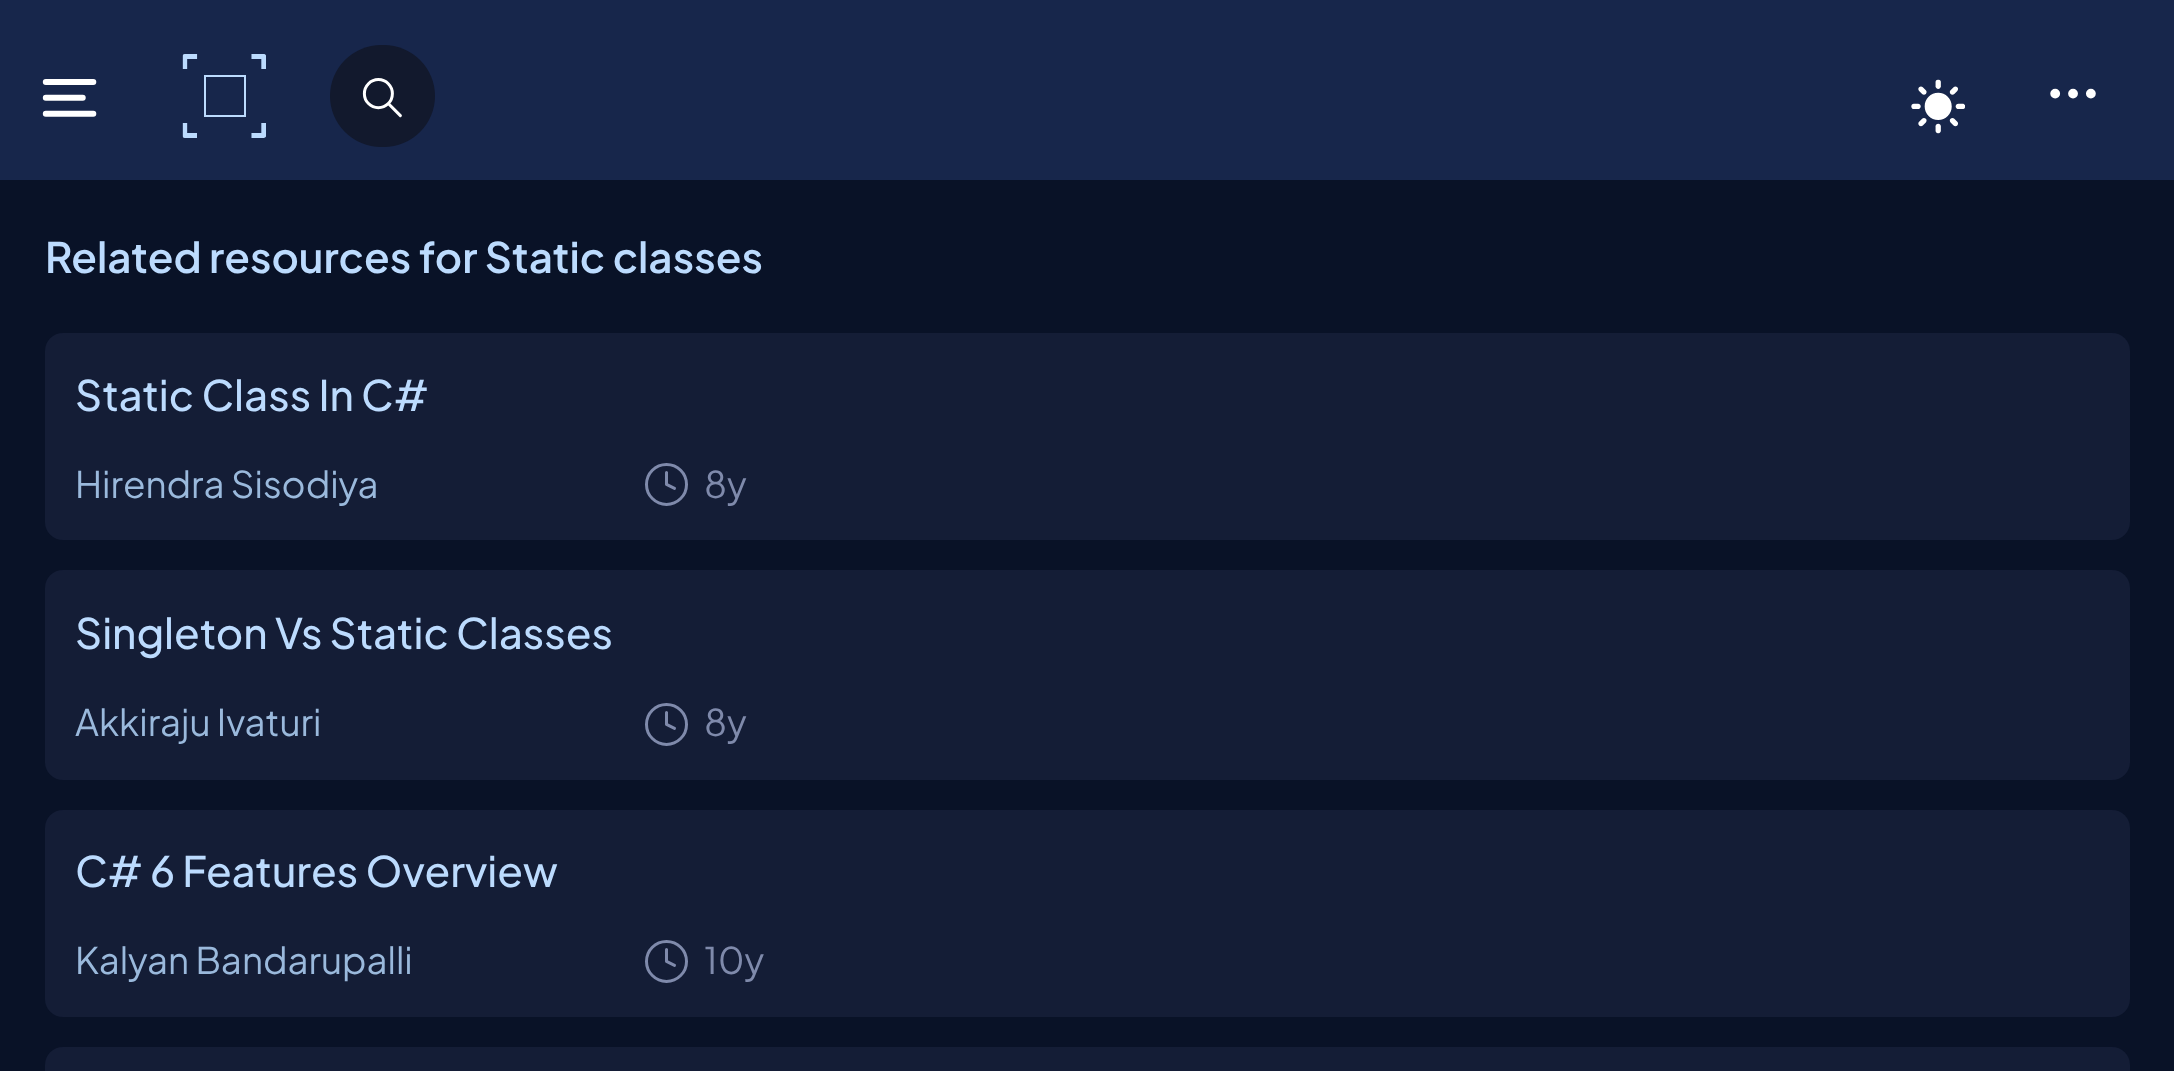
<svg xmlns="http://www.w3.org/2000/svg" width="2174" height="1071" viewBox="0 0 2174 1071">
  <rect width="100%" height="100%" fill="#091227"/>
  <path d="M0 0h2174v180H0z" fill="#17264b"/>
  <image x="182" y="54" width="84" height="84" href="img/1.png"/>
  <path d="M205 76h40v40H205z" fill="none" stroke="#bcdbfe" stroke-width="2"/>
  <rect x="330" y="45" width="105" height="102" rx="51" fill="#12192d"/>
  <image x="362" y="78" width="40" height="40" href="img/2.png"/>
  <image x="1911" y="79" width="54" height="55" href="img/3.png"/>
  <image x="2050" y="88" width="46" height="11" href="img/4.png"/>
  <image x="42" y="79" width="55" height="38" href="img/5.png"/>
  <rect x="45" y="333" width="2085" height="207" rx="18" fill="#141d36"/>
  <image x="645" y="463" width="43" height="43" href="img/6.png"/>
  <rect x="45" y="570" width="2085" height="210" rx="18" fill="#141d36"/>
  <image x="645" y="703" width="43" height="43" href="img/6.png"/>
  <rect x="45" y="810" width="2085" height="207" rx="18" fill="#141d36"/>
  <image x="645" y="940" width="43" height="43" href="img/6.png"/>
  <rect x="45" y="1047" width="2085" height="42" rx="18" fill="#141d36"/>
  <text x="45" y="273" font-family="Plus Jakarta Sans" font-size="42" font-weight="600" fill="#bcdbfe">Related resources for Static classes</text>
  <text x="75" y="411" font-family="Plus Jakarta Sans" font-size="42" font-weight="500" fill="#bcdbfe">Static Class In C#</text>
  <text x="75" y="498" font-family="Plus Jakarta Sans" font-size="36.75" fill="#9ab9dc">Hirendra Sisodiya</text>
  <text x="704" y="498" font-family="Plus Jakarta Sans" font-size="36.75" fill="#7f8aab">8y</text>
  <text x="75" y="649" font-family="Plus Jakarta Sans" font-size="42" font-weight="500" fill="#bcdbfe">Singleton Vs Static Classes</text>
  <text x="75" y="736" font-family="Plus Jakarta Sans" font-size="36.75" fill="#9ab9dc">Akkiraju Ivaturi</text>
  <text x="704" y="736" font-family="Plus Jakarta Sans" font-size="36.75" fill="#7f8aab">8y</text>
  <text x="75" y="887" font-family="Plus Jakarta Sans" font-size="42" font-weight="500" fill="#bcdbfe">C# 6 Features Overview</text>
  <text x="75" y="974" font-family="Plus Jakarta Sans" font-size="36.75" fill="#9ab9dc">Kalyan Bandarupalli</text>
  <text x="704" y="974" font-family="Plus Jakarta Sans" font-size="36.75" fill="#7f8aab">10y</text>
</svg>
